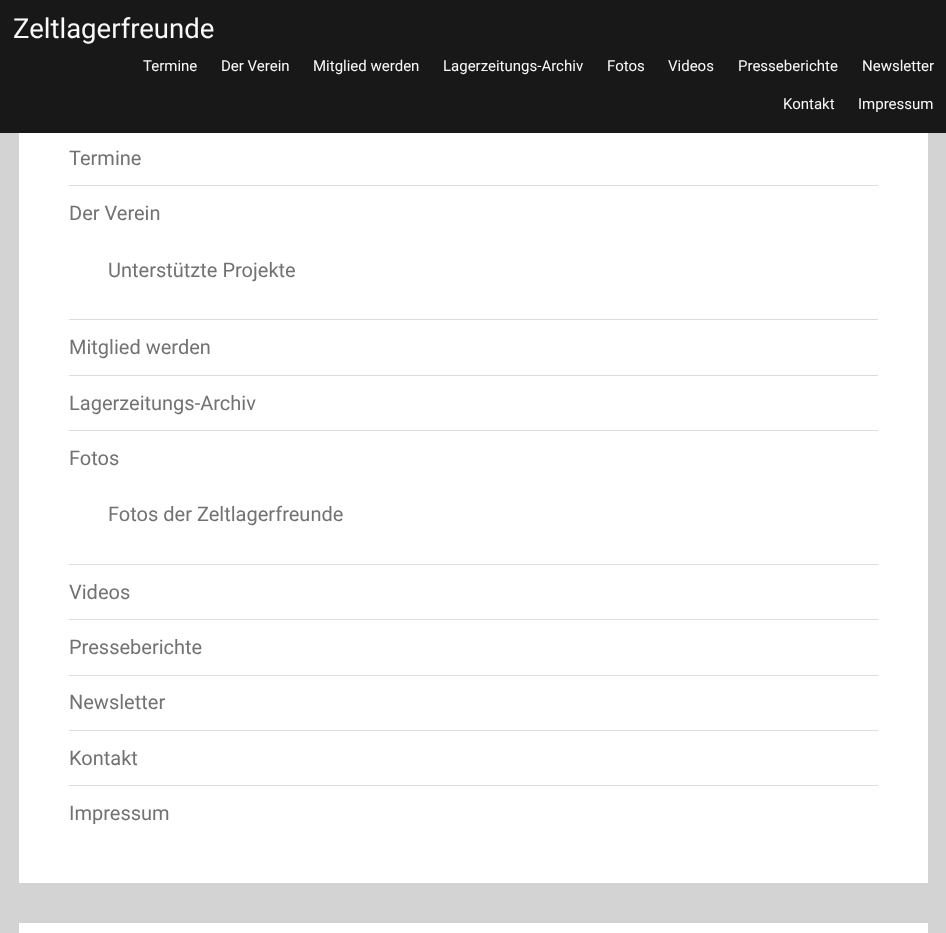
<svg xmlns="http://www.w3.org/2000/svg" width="946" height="933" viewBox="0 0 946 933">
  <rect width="100%" height="100%" fill="#d3d3d3"/>
  <path d="M0 0h946v133H0z" fill="#181818"/>
  <path d="M19 133h909v750H19z" fill="#fff"/>
  <path d="M69 185h809v1H69z" fill="#ddd"/>
  <path d="M69 319h809v1H69z" fill="#ddd"/>
  <path d="M69 375h809v1H69z" fill="#ddd"/>
  <path d="M69 430h809v1H69z" fill="#ddd"/>
  <path d="M69 564h809v1H69z" fill="#ddd"/>
  <path d="M69 619h809v1H69z" fill="#ddd"/>
  <path d="M69 675h809v1H69z" fill="#ddd"/>
  <path d="M69 730h809v1H69z" fill="#ddd"/>
  <path d="M69 785h809v1H69z" fill="#ddd"/>
  <path d="M19 923h909v10H19z" fill="#fff"/>
  <text x="13" y="38" font-family="Roboto" font-size="27.5" fill="#f9f9f9">Zeltlagerfreunde</text>
  <g font-family="Roboto" font-size="15" fill="#f9f9f9">
    <text x="143" y="71">Termine</text>
    <text x="221" y="71">Der Verein</text>
    <text x="313" y="71">Mitglied werden</text>
    <text x="443" y="71">Lagerzeitungs-Archiv</text>
    <text x="607" y="71">Fotos</text>
    <text x="668" y="71">Videos</text>
    <text x="738" y="71">Presseberichte</text>
    <text x="862" y="71">Newsletter</text>
    <text x="783" y="109">Kontakt</text>
    <text x="858" y="109">Impressum</text>
  </g>
  <g font-family="Roboto" font-size="20" fill="#727272">
    <text x="69" y="165">Termine</text>
    <text x="69" y="220">Der Verein</text>
    <text x="108" y="277">Unterstützte Projekte</text>
    <text x="69" y="354">Mitglied werden</text>
    <text x="69" y="410">Lagerzeitungs-Archiv</text>
    <text x="69" y="465">Fotos</text>
    <text x="108" y="521">Fotos der Zeltlagerfreunde</text>
    <text x="69" y="599">Videos</text>
    <text x="69" y="654">Presseberichte</text>
    <text x="69" y="709">Newsletter</text>
    <text x="69" y="765">Kontakt</text>
    <text x="69" y="820">Impressum</text>
  </g>
</svg>
